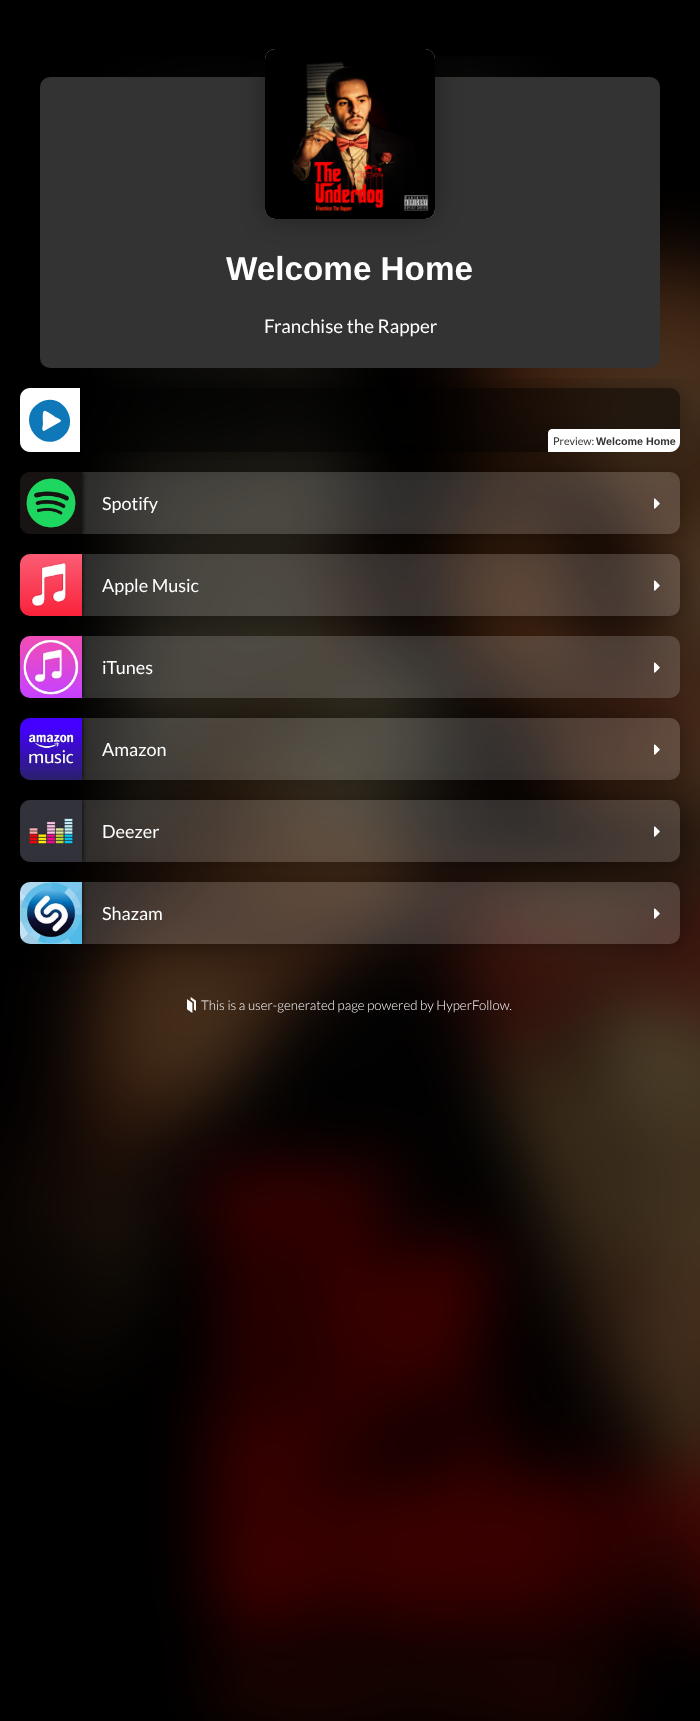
<svg xmlns="http://www.w3.org/2000/svg" width="700" height="1721" viewBox="0 0 700 1721">
  <defs>
    <clipPath id="clip1"><path d="M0 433H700V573H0ZM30 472H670C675.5 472 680 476.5 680 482V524C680 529.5 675.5 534 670 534H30C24.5 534 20 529.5 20 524V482C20 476.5 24.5 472 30 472Z" clip-rule="evenodd"/></clipPath>
    <clipPath id="clip2"><rect x="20" y="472" width="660" height="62" rx="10"/></clipPath>
    <clipPath id="clip3"><path d="M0 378h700v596H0z"/></clipPath>
    <clipPath id="clip4"><path d="M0 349H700V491H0ZM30 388H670C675.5 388 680 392.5 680 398V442C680 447.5 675.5 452 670 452H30C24.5 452 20 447.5 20 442V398C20 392.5 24.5 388 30 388Z" clip-rule="evenodd"/></clipPath>
    <clipPath id="clip5"><path d="M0 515H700V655H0ZM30 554H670C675.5 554 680 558.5 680 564V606C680 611.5 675.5 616 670 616H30C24.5 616 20 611.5 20 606V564C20 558.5 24.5 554 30 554Z" clip-rule="evenodd"/></clipPath>
    <clipPath id="clip6"><rect x="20" y="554" width="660" height="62" rx="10"/></clipPath>
    <clipPath id="clip7"><rect x="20" y="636" width="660" height="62" rx="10"/></clipPath>
    <clipPath id="clip8"><path d="M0 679H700V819H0ZM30 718H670C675.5 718 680 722.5 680 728V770C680 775.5 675.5 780 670 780H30C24.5 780 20 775.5 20 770V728C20 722.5 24.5 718 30 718Z" clip-rule="evenodd"/></clipPath>
    <clipPath id="clip9"><rect x="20" y="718" width="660" height="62" rx="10"/></clipPath>
    <clipPath id="clip10"><path d="M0 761H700V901H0ZM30 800H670C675.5 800 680 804.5 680 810V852C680 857.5 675.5 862 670 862H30C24.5 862 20 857.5 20 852V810C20 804.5 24.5 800 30 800Z" clip-rule="evenodd"/></clipPath>
    <clipPath id="clip11"><rect x="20" y="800" width="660" height="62" rx="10"/></clipPath>
    <clipPath id="clip12"><path d="M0 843H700V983H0ZM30 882H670C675.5 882 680 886.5 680 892V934C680 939.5 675.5 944 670 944H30C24.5 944 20 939.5 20 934V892C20 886.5 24.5 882 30 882Z" clip-rule="evenodd"/></clipPath>
    <clipPath id="clip13"><rect x="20" y="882" width="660" height="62" rx="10"/></clipPath>
  </defs>
  <rect width="100%" height="100%" fill="#000"/>
  <image x="0" y="56" width="700" height="1665" href="img/1.png"/>
  <rect x="40" y="77" width="620" height="291" rx="10" fill="#333"/>
  <rect x="265" y="49" width="170" height="170" rx="10" fill="#00000059" filter="blur(12.5px)"/>
  <rect x="265" y="49" width="170" height="170" rx="10" fill="#ccc"/>
  <image x="265" y="49" width="170" height="170" href="img/2.png"/>
  <g clip-path="url(#clip1)">
    <rect x="20" y="472" width="660" height="62" rx="10" fill="#00000059" filter="blur(12.5px)"/>
  </g>
  <rect x="20" y="472" width="660" height="62" rx="10" fill="#ffffff2b"/>
  <g clip-path="url(#clip2)">
    <path d="M20 472h62v62H20z" fill="#000" filter="blur(2.5px)"/>
  </g>
  <image x="20" y="472" width="62" height="62" href="img/3.png"/>
  <g clip-path="url(#clip3)">
    <g clip-path="url(#clip4)">
      <rect x="20" y="388" width="660" height="64" rx="10" fill="#00000059" filter="blur(12.5px)"/>
    </g>
  </g>
  <path d="M30 388H80V452H30C24.5 452 20 447.5 20 442V398C20 392.5 24.5 388 30 388Z" fill="#fff"/>
  <path d="M39 403C63 389 83 425 60 439C37 452 16 417 39 403ZM60 422C64 420 55 417 55 417C53 415 45 410 44 411C42 412 43 422 43 424C43 425 41 431 44 431Z" fill="#0f78b8"/>
  <path d="M80 388H670C675.5 388 680 392.5 680 398V442C680 447.5 675.5 452 670 452H80Z" fill="#00000080"/>
  <path d="M552 429H680V442C680 447.5 675.5 452 670 452H548V433C548 431 550 429 552 429Z" fill="#fff"/>
  <image x="654" y="498" width="6" height="11" href="img/4.png"/>
  <g clip-path="url(#clip5)">
    <rect x="20" y="554" width="660" height="62" rx="10" fill="#00000059" filter="blur(12.5px)"/>
  </g>
  <rect x="20" y="554" width="660" height="62" rx="10" fill="#ffffff2b"/>
  <g clip-path="url(#clip6)">
    <path d="M20 554h62v62H20z" fill="#000" filter="blur(2.5px)"/>
  </g>
  <image x="20" y="554" width="62" height="62" href="img/5.png"/>
  <image x="654" y="580" width="6" height="11" href="img/6.png"/>
  <rect x="20" y="636" width="660" height="62" rx="10" fill="#ffffff2b"/>
  <g clip-path="url(#clip7)">
    <path d="M20 636h62v62H20z" fill="#000" filter="blur(2.5px)"/>
  </g>
  <image x="20" y="636" width="62" height="62" href="img/7.png"/>
  <image x="654" y="662" width="6" height="11" href="img/8.png"/>
  <g clip-path="url(#clip8)">
    <rect x="20" y="718" width="660" height="62" rx="10" fill="#00000059" filter="blur(12.5px)"/>
  </g>
  <rect x="20" y="718" width="660" height="62" rx="10" fill="#ffffff2b"/>
  <g clip-path="url(#clip9)">
    <path d="M20 718h62v62H20z" fill="#000" filter="blur(2.5px)"/>
  </g>
  <image x="20" y="718" width="62" height="62" href="img/9.png"/>
  <image x="654" y="744" width="6" height="11" href="img/10.png"/>
  <g clip-path="url(#clip10)">
    <rect x="20" y="800" width="660" height="62" rx="10" fill="#00000059" filter="blur(12.5px)"/>
  </g>
  <rect x="20" y="800" width="660" height="62" rx="10" fill="#ffffff2b"/>
  <g clip-path="url(#clip11)">
    <path d="M20 800h62v62H20z" fill="#000" filter="blur(2.5px)"/>
  </g>
  <image x="20" y="800" width="62" height="62" href="img/11.png"/>
  <image x="654" y="826" width="6" height="11" href="img/12.png"/>
  <g clip-path="url(#clip12)">
    <rect x="20" y="882" width="660" height="62" rx="10" fill="#00000059" filter="blur(12.5px)"/>
  </g>
  <rect x="20" y="882" width="660" height="62" rx="10" fill="#ffffff2b"/>
  <g clip-path="url(#clip13)">
    <path d="M20 882h62v62H20z" fill="#000" filter="blur(2.5px)"/>
  </g>
  <image x="20" y="882" width="62" height="62" href="img/13.png"/>
  <image x="654" y="908" width="6" height="11" href="img/14.png"/>
  <image x="187" y="997" width="9" height="16" href="img/15.png"/>
  <text x="226" y="280" font-family="Liberation Sans" font-size="33.25" font-weight="bold" fill="#fff">Welcome Home</text>
  <text x="264" y="333" font-family="Lato" font-size="18.75" fill="#fff">Franchise the Rapper</text>
  <text x="553" y="445" font-family="Lato" font-size="10.75" fill="#333">Preview:</text>
  <text x="596" y="445" font-family="Liberation Sans" font-size="10.75" font-weight="bold" fill="#333">Welcome Home</text>
  <g font-family="Lato" font-size="18" fill="#fff">
    <text x="102" y="510">Spotify</text>
    <text x="102" y="592">Apple Music</text>
    <text x="102" y="674">iTunes</text>
    <text x="102" y="756">Amazon</text>
    <text x="102" y="838">Deezer</text>
    <text x="102" y="920">Shazam</text>
  </g>
  <text x="201" y="1010" font-family="Lato" font-size="13.3" font-weight="300" fill="#fff">This is a user-generated page powered by HyperFollow.</text>
</svg>
